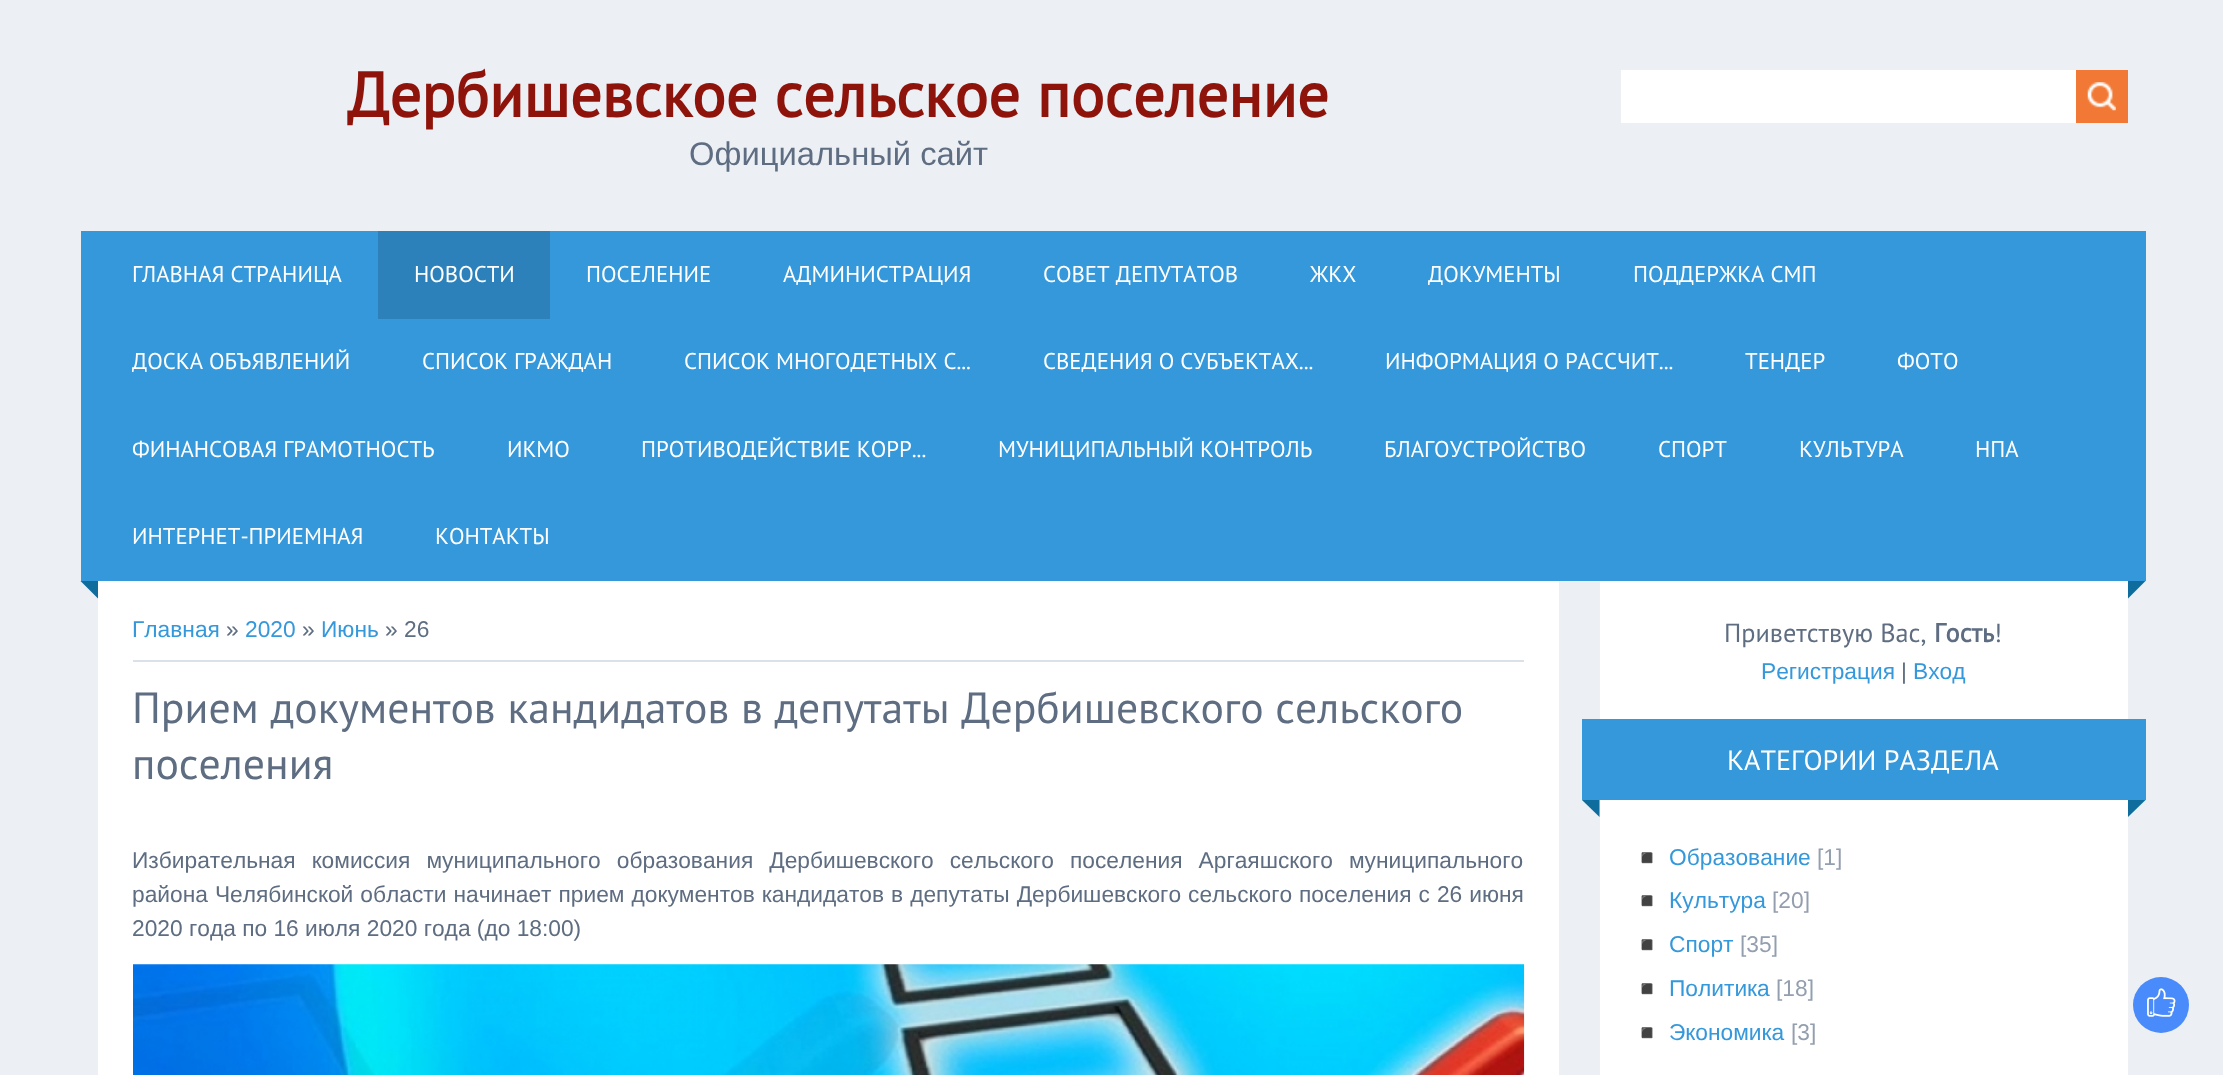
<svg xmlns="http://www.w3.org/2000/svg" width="2223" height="1075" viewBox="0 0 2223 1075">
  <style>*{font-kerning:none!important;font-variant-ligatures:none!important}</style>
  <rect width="100%" height="100%" fill="#eceff3"/>
  <path d="M1621 70h455v53H1621z" fill="#fff"/>
  <path d="M2076 70h52v53H2076z" fill="#f27935"/>
  <image x="2087" y="82" width="29" height="29" href="img/1.png"/>
  <path d="M81 231h2065v350H81z" fill="#3498db"/>
  <path d="M378 231h172v88H378z" fill="#2c81ba"/>
  <path d="M80.5 581H98V598.5Z" fill="#0f6d9e"/>
  <path d="M2128 581H2145.5L2128 598.5Z" fill="#0f6d9e"/>
  <path d="M98 581h1461v494H98z" fill="#fff"/>
  <path d="M133 660h1391v2H133z" fill="#dbe1e8"/>
  <image x="133" y="964" width="1392" height="111" href="img/2.png"/>
  <path d="M1600 581h528v494H1600z" fill="#fff"/>
  <path d="M1582 719h564v81H1582z" fill="#3498db"/>
  <path d="M1582 800H1599.5V817Z" fill="#0f6d9e"/>
  <path d="M2128 800H2145.5L2128 817Z" fill="#0f6d9e"/>
  <circle cx="2161" cy="1005" r="28" fill="#498bfa"/>
  <image x="2147" y="988" width="29" height="29" href="img/3.png"/>
  <text x="347" y="117" font-family="PT Sans" font-size="63" font-weight="bold" fill="#8e130b">Дербишевское сельское поселение</text>
  <text x="689" y="165" font-family="Liberation Sans" font-size="32.75" fill="#5e6d81">Официальный сайт</text>
  <g font-family="PT Sans" font-size="22.75" fill="#fff">
    <text x="132" y="282">ГЛАВНАЯ СТРАНИЦА</text>
    <text x="414" y="282">НОВОСТИ</text>
    <text x="586" y="282">ПОСЕЛЕНИЕ</text>
    <text x="783" y="282">АДМИНИСТРАЦИЯ</text>
    <text x="1043" y="282">СОВЕТ ДЕПУТАТОВ</text>
    <text x="1310" y="282">ЖКХ</text>
    <text x="1428" y="282">ДОКУМЕНТЫ</text>
    <text x="1633" y="282">ПОДДЕРЖКА СМП</text>
    <text x="132" y="369">ДОСКА ОБЪЯВЛЕНИЙ</text>
    <text x="422" y="369">СПИСОК ГРАЖДАН</text>
    <text x="684" y="369">СПИСОК МНОГОДЕТНЫХ С...</text>
    <text x="1043" y="369">СВЕДЕНИЯ О СУБЪЕКТАХ...</text>
    <text x="1385" y="369">ИНФОРМАЦИЯ О РАССЧИТ...</text>
    <text x="1745" y="369">ТЕНДЕР</text>
    <text x="1897" y="369">ФОТО</text>
    <text x="132" y="457">ФИНАНСОВАЯ ГРАМОТНОСТЬ</text>
    <text x="507" y="457">ИКМО</text>
    <text x="641" y="457">ПРОТИВОДЕЙСТВИЕ КОРР...</text>
    <text x="998" y="457">МУНИЦИПАЛЬНЫЙ КОНТРОЛЬ</text>
    <text x="1384" y="457">БЛАГОУСТРОЙСТВО</text>
    <text x="1658" y="457">СПОРТ</text>
    <text x="1799" y="457">КУЛЬТУРА</text>
    <text x="1975" y="457">НПА</text>
    <text x="132" y="544">ИНТЕРНЕТ-ПРИЕМНАЯ</text>
    <text x="435" y="544">КОНТАКТЫ</text>
  </g>
  <text x="132" y="637" font-family="Liberation Sans" font-size="22.75" fill="#3498db">Главная</text>
  <text x="226" y="637" font-family="Liberation Sans" font-size="22.75" fill="#5e6d81">»</text>
  <text x="245" y="637" font-family="Liberation Sans" font-size="22.75" fill="#3498db">2020</text>
  <text x="302" y="637" font-family="Liberation Sans" font-size="22.75" fill="#5e6d81">»</text>
  <text x="321" y="637" font-family="Liberation Sans" font-size="22.75" fill="#3498db">Июнь</text>
  <text x="385" y="637" font-family="Liberation Sans" font-size="22.75" fill="#5e6d81">» 26</text>
  <g font-family="PT Sans" font-size="43.75" fill="#5e6d81">
    <text x="132" y="723">Прием документов кандидатов в депутаты Дербишевского сельского</text>
    <text x="132" y="779">поселения</text>
  </g>
  <g font-family="Liberation Sans" font-size="22.75" fill="#5e6d81">
    <text x="132" y="868" word-spacing="9.75">Избирательная комиссия муниципального образования Дербишевского сельского</text>
    <text x="1070" y="868" word-spacing="9.75">поселения Аргаяшского муниципального</text>
    <text x="132" y="902" word-spacing="0.7">района Челябинской области начинает прием документов кандидатов в депутаты Дербишевского сельского</text>
    <text x="1299" y="902" word-spacing="0.7">поселения с 26 июня</text>
    <text x="132" y="936">2020 года по 16 июля 2020 года (до 18:00)</text>
  </g>
  <text x="1724" y="642" font-family="PT Sans" font-size="26.25" fill="#5e6d81">Приветствую Вас,</text>
  <text x="1934" y="642" font-family="PT Sans" font-size="26.25" font-weight="bold" fill="#5e6d81">Гость</text>
  <text x="1994" y="642" font-family="PT Sans" font-size="26.25" fill="#5e6d81">!</text>
  <text x="1761" y="679" font-family="Liberation Sans" font-size="22.75" fill="#3498db">Регистрация</text>
  <text x="1901" y="679" font-family="Liberation Sans" font-size="22.75" fill="#5e6d81">|</text>
  <text x="1913" y="679" font-family="Liberation Sans" font-size="22.75" fill="#3498db">Вход</text>
  <text x="1727" y="770" font-family="PT Sans" font-size="28" fill="#fff">КАТЕГОРИИ РАЗДЕЛА</text>
  <text x="1634" y="865" font-family="Noto Color Emoji" font-size="21" fill="#dadddf">◾</text>
  <text x="1669" y="865" font-family="Liberation Sans" font-size="22.75" fill="#3498db">Образование</text>
  <text x="1817" y="865" font-family="Liberation Sans" font-size="22.75" fill="#939fae">[1]</text>
  <text x="1634" y="908" font-family="Noto Color Emoji" font-size="21" fill="#dadddf">◾</text>
  <text x="1669" y="908" font-family="Liberation Sans" font-size="22.75" fill="#3498db">Культура</text>
  <text x="1772" y="908" font-family="Liberation Sans" font-size="22.75" fill="#939fae">[20]</text>
  <text x="1634" y="952" font-family="Noto Color Emoji" font-size="21" fill="#dadddf">◾</text>
  <text x="1669" y="952" font-family="Liberation Sans" font-size="22.75" fill="#3498db">Спорт</text>
  <text x="1740" y="952" font-family="Liberation Sans" font-size="22.75" fill="#939fae">[35]</text>
  <text x="1634" y="996" font-family="Noto Color Emoji" font-size="21" fill="#dadddf">◾</text>
  <text x="1669" y="996" font-family="Liberation Sans" font-size="22.75" fill="#3498db">Политика</text>
  <text x="1776" y="996" font-family="Liberation Sans" font-size="22.75" fill="#939fae">[18]</text>
  <text x="1634" y="1040" font-family="Noto Color Emoji" font-size="21" fill="#dadddf">◾</text>
  <text x="1669" y="1040" font-family="Liberation Sans" font-size="22.75" fill="#3498db">Экономика</text>
  <text x="1791" y="1040" font-family="Liberation Sans" font-size="22.75" fill="#939fae">[3]</text>
</svg>
